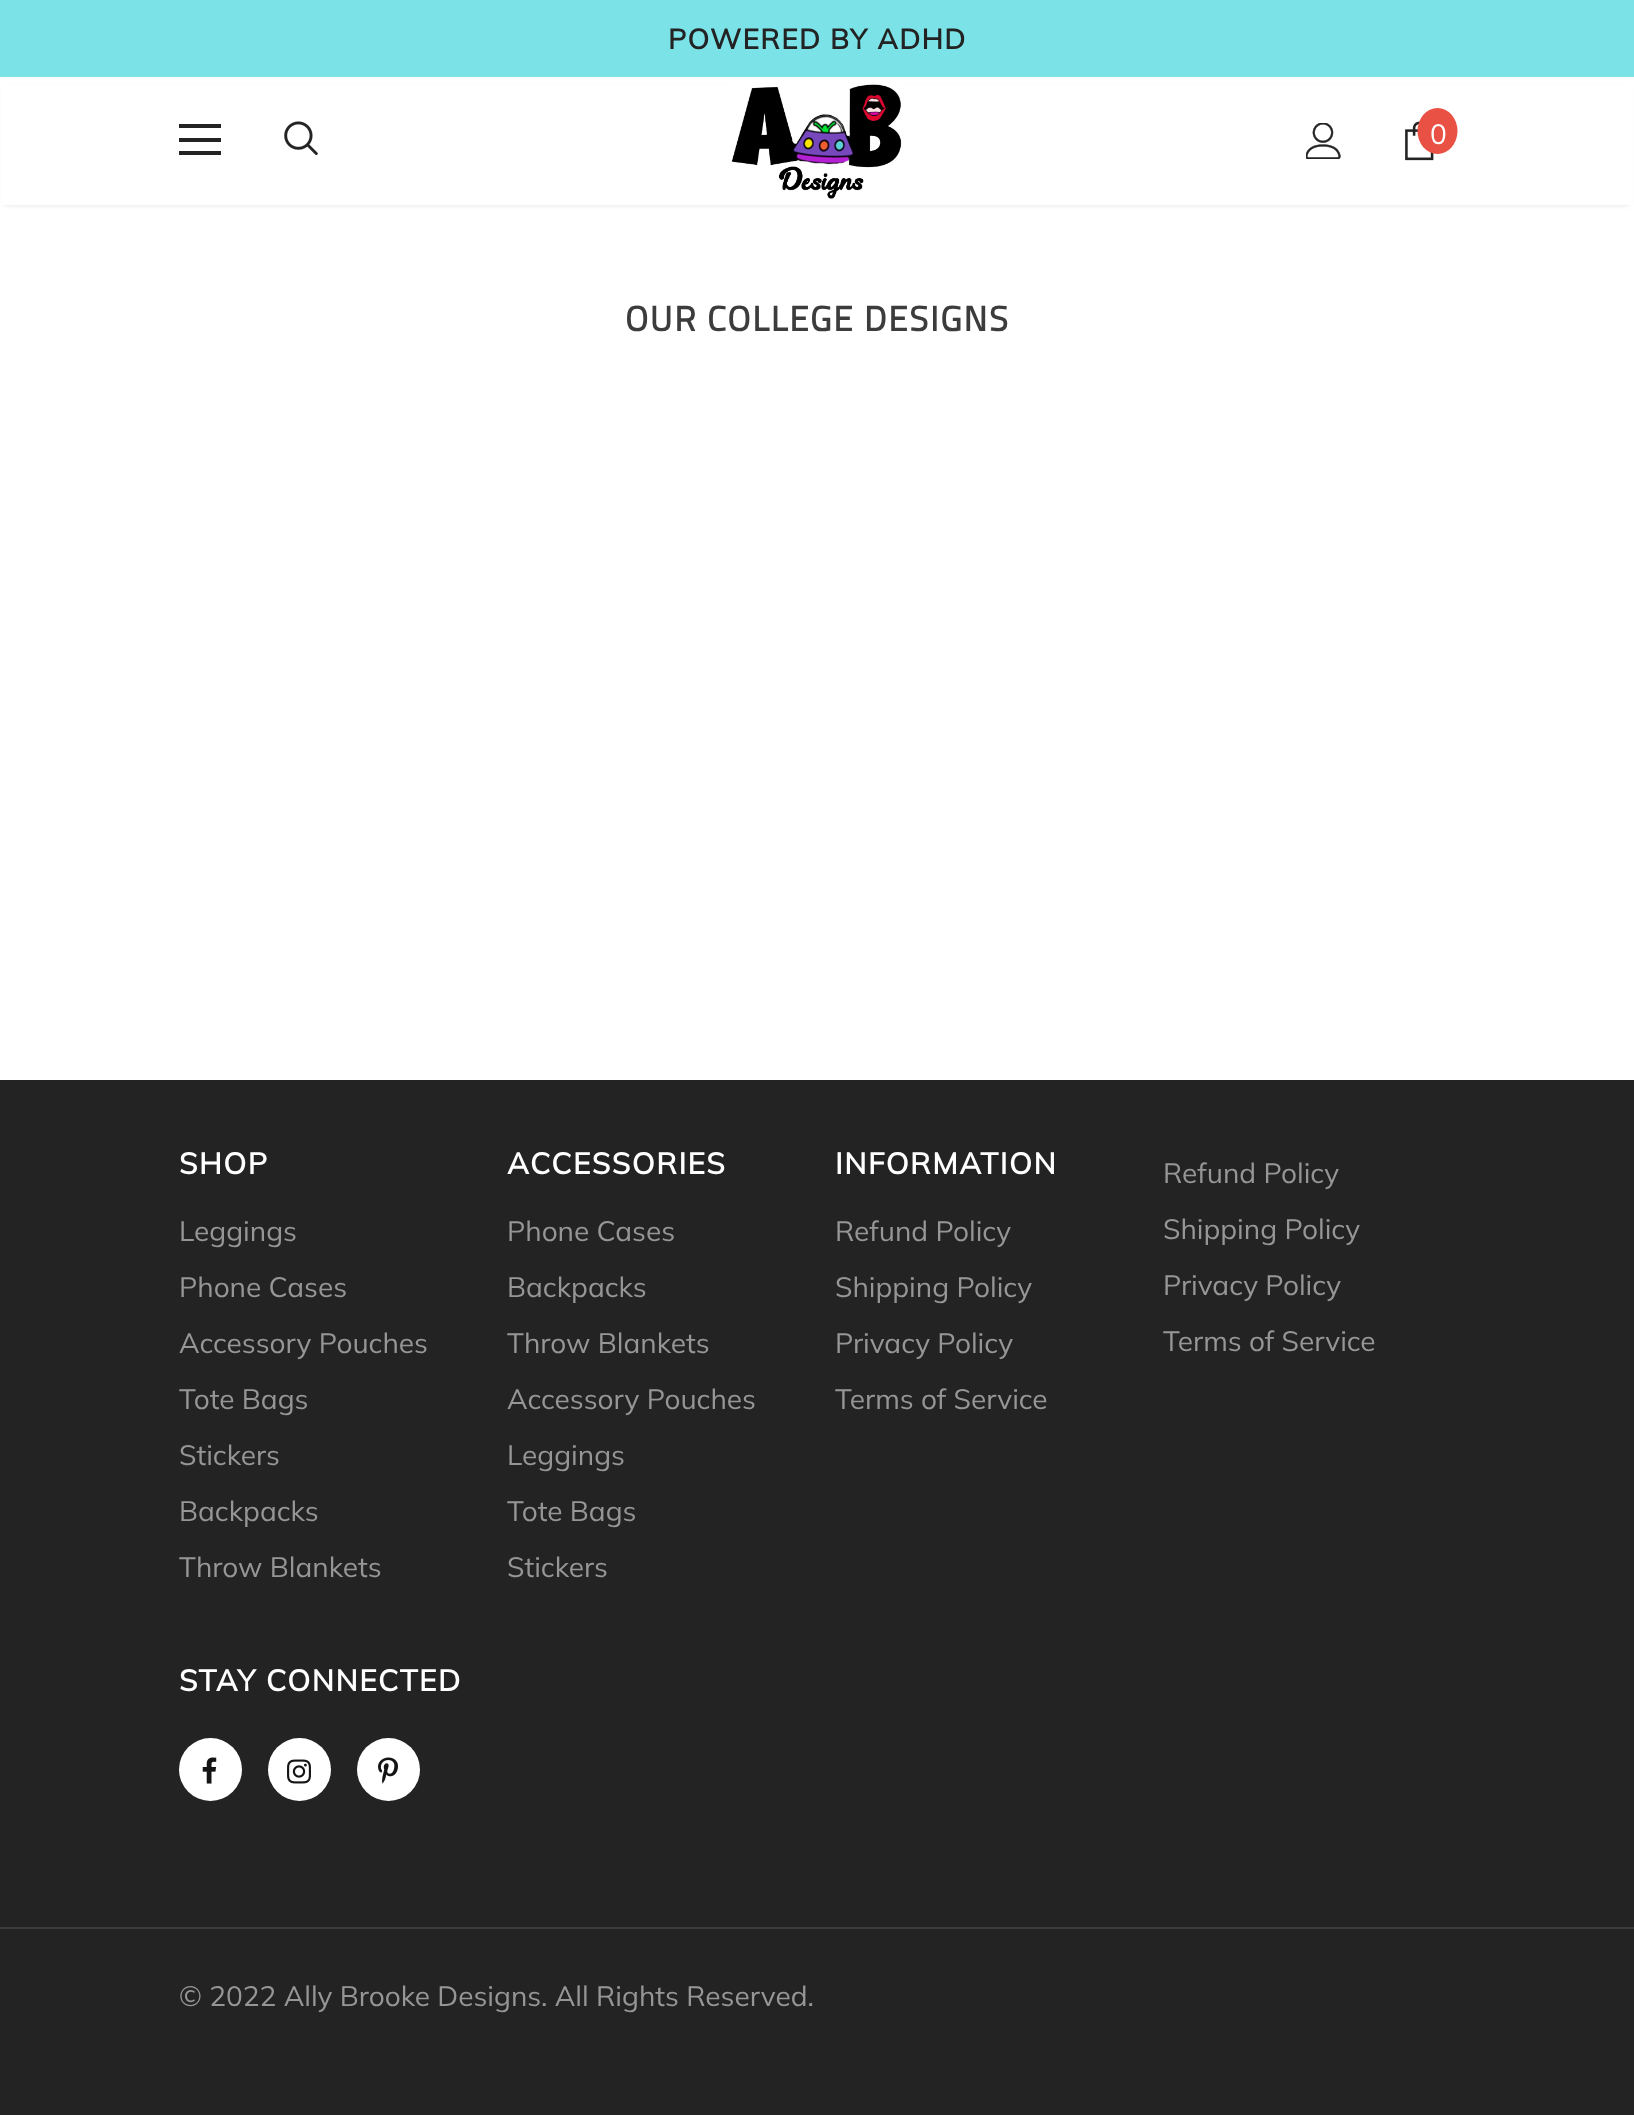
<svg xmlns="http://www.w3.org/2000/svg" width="1634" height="2115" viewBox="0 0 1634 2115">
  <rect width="100%" height="100%" fill="#fff"/>
  <path d="M0 0h1634v77H0z" fill="#7be3e8"/>
  <path d="M5 88h1624v117H5z" fill="#0000001f" filter="blur(2.5px)"/>
  <path d="M2 85h1630v120H2z" fill="#fff"/>
  <path d="M179 124h42v4H179z" fill="#232323"/>
  <path d="M179 138h42v4H179z" fill="#232323"/>
  <path d="M179 151h42v4H179z" fill="#232323"/>
  <image x="284" y="121" width="34" height="34" href="img/1.png"/>
  <image x="731" y="84" width="171" height="115" href="img/2.png"/>
  <image x="1306" y="123" width="35" height="36" href="img/3.png"/>
  <image x="1405" y="121" width="29" height="40" href="img/4.png"/>
  <ellipse cx="1437.5" cy="131" rx="20" ry="23" fill="#e95144"/>
  <path d="M0 1080h1634v1035H0z" fill="#232323"/>
  <circle cx="210.5" cy="1769.5" r="31.5" fill="#fff"/>
  <image x="202" y="1757" width="15" height="27" href="img/5.png"/>
  <circle cx="299.5" cy="1769.5" r="31.5" fill="#fff"/>
  <image x="287" y="1759" width="24" height="25" href="img/6.png"/>
  <circle cx="388.5" cy="1769.5" r="31.5" fill="#fff"/>
  <image x="378" y="1757" width="20" height="27" href="img/7.png"/>
  <path d="M0 1927h1634v2H0z" fill="#3b3b3b"/>
  <text x="668" y="49" font-family="Muli" font-size="28" font-weight="bold" letter-spacing="1.4" fill="#232323">POWERED BY ADHD</text>
  <text x="1430" y="144" font-family="Muli" font-size="28" fill="#fff">0</text>
  <text x="625" y="331" font-family="Titillium Web" font-size="35" font-weight="bold" letter-spacing="1.75" fill="#3c3c3c">OUR COLLEGE DESIGNS</text>
  <text x="179" y="1174" font-family="Muli" font-size="29.75" font-weight="bold" letter-spacing="1.5" fill="#fff">SHOP</text>
  <g font-family="Muli" font-size="28" fill="#969696">
    <text x="179" y="1241">Leggings</text>
    <text x="179" y="1297">Phone Cases</text>
    <text x="179" y="1353">Accessory Pouches</text>
    <text x="179" y="1409">Tote Bags</text>
    <text x="179" y="1465">Stickers</text>
    <text x="179" y="1521">Backpacks</text>
    <text x="179" y="1577">Throw Blankets</text>
  </g>
  <text x="507" y="1174" font-family="Muli" font-size="29.75" font-weight="bold" letter-spacing="1.5" fill="#fff">ACCESSORIES</text>
  <g font-family="Muli" font-size="28" fill="#969696">
    <text x="507" y="1241">Phone Cases</text>
    <text x="507" y="1297">Backpacks</text>
    <text x="507" y="1353">Throw Blankets</text>
    <text x="507" y="1409">Accessory Pouches</text>
    <text x="507" y="1465">Leggings</text>
    <text x="507" y="1521">Tote Bags</text>
    <text x="507" y="1577">Stickers</text>
  </g>
  <text x="835" y="1174" font-family="Muli" font-size="29.75" font-weight="bold" letter-spacing="1.5" fill="#fff">INFORMATION</text>
  <g font-family="Muli" font-size="28" fill="#969696">
    <text x="835" y="1241">Refund Policy</text>
    <text x="835" y="1297">Shipping Policy</text>
    <text x="835" y="1353">Privacy Policy</text>
    <text x="835" y="1409">Terms of Service</text>
    <text x="1163" y="1183">Refund Policy</text>
    <text x="1163" y="1239">Shipping Policy</text>
    <text x="1163" y="1295">Privacy Policy</text>
    <text x="1163" y="1351">Terms of Service</text>
  </g>
  <text x="179" y="1691" font-family="Muli" font-size="29.75" font-weight="bold" letter-spacing="1.5" fill="#fff">STAY CONNECTED</text>
  <text x="179" y="2006" font-family="Muli" font-size="28" fill="#969696">© 2022 Ally Brooke Designs. All Rights Reserved.</text>
</svg>
